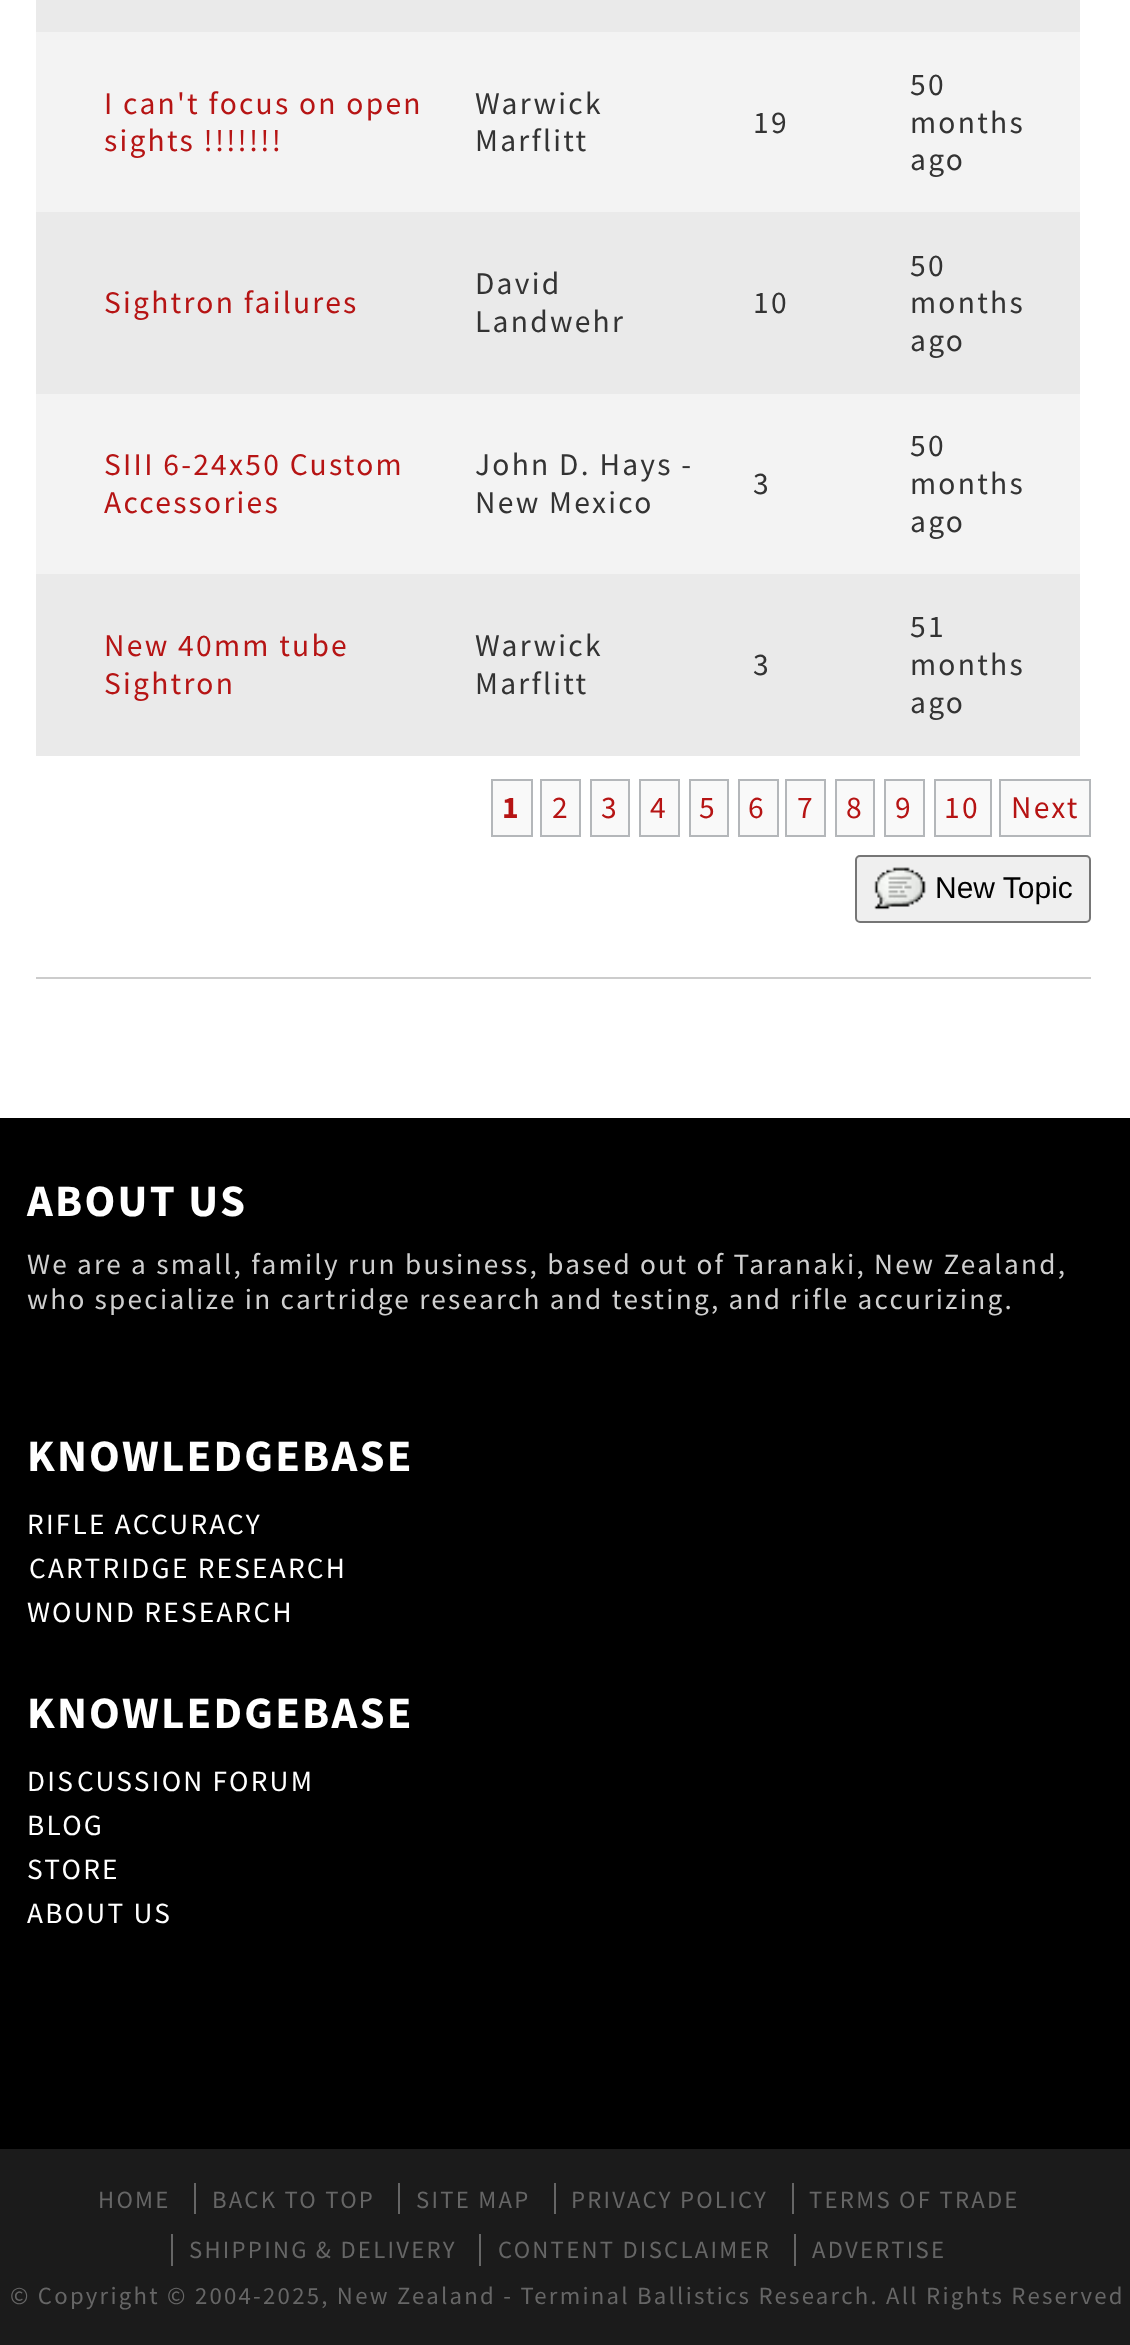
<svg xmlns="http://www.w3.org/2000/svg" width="1130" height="2345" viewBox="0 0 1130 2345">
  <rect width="100%" height="100%" fill="#fff"/>
  <path d="M36 0h1044v32H36z" fill="#eaeaea"/>
  <path d="M36 32h1044v180H36z" fill="#f3f3f3"/>
  <path d="M36 212h1044v182H36z" fill="#eaeaea"/>
  <path d="M36 394h1044v180H36z" fill="#f3f3f3"/>
  <path d="M36 574h1044v182H36z" fill="#eaeaea"/>
  <path d="M492 780h40v56H492z" fill="#f9f9f9" stroke="#b4b7ba" stroke-width="2"/>
  <path d="M541 780h39v56H541z" fill="#f9f9f9" stroke="#b4b7ba" stroke-width="2"/>
  <path d="M591 780h38v56H591z" fill="#f9f9f9" stroke="#b4b7ba" stroke-width="2"/>
  <path d="M640 780h39v56H640z" fill="#f9f9f9" stroke="#b4b7ba" stroke-width="2"/>
  <path d="M690 780h38v56H690z" fill="#f9f9f9" stroke="#b4b7ba" stroke-width="2"/>
  <path d="M739 780h39v56H739z" fill="#f9f9f9" stroke="#b4b7ba" stroke-width="2"/>
  <path d="M786 780h39v56H786z" fill="#f9f9f9" stroke="#b4b7ba" stroke-width="2"/>
  <path d="M836 780h38v56H836z" fill="#f9f9f9" stroke="#b4b7ba" stroke-width="2"/>
  <path d="M885 780h39v56H885z" fill="#f9f9f9" stroke="#b4b7ba" stroke-width="2"/>
  <path d="M935 780h56v56H935z" fill="#f9f9f9" stroke="#b4b7ba" stroke-width="2"/>
  <path d="M1000 780h90v56H1000z" fill="#f9f9f9" stroke="#b4b7ba" stroke-width="2"/>
  <rect x="856" y="856" width="234" height="66" rx="4" fill="#efefef" stroke="#767676" stroke-width="2"/>
  <image x="874" y="867" width="52" height="43" href="img/1.png"/>
  <path d="M36 977h1055v2H36z" fill="#ccc"/>
  <path d="M0 1118h1130v1031H0z" fill="#000"/>
  <path d="M0 2149h1130v196H0z" fill="#1b1b1b"/>
  <path d="M194 2183h2v31H194z" fill="#666"/>
  <path d="M398 2183h2v31H398z" fill="#666"/>
  <path d="M554 2183h2v31H554z" fill="#666"/>
  <path d="M792 2183h2v31H792z" fill="#666"/>
  <path d="M171 2234h2v32H171z" fill="#666"/>
  <path d="M479 2234h2v32H479z" fill="#666"/>
  <path d="M794 2234h2v32H794z" fill="#666"/>
  <g font-family="Source Sans Pro" font-size="31.5" letter-spacing="2.25" fill="#b61414">
    <text x="104" y="114">I can't focus on open</text>
    <text x="104" y="151">sights !!!!!!!</text>
  </g>
  <g font-family="Source Sans Pro" font-size="31.5" letter-spacing="2.25" fill="#333">
    <text x="475" y="114">Warwick</text>
    <text x="475" y="151">Marflitt</text>
    <text x="753" y="133">19</text>
    <text x="910" y="95">50</text>
    <text x="910" y="133">months</text>
    <text x="910" y="170">ago</text>
  </g>
  <text x="104" y="313" font-family="Source Sans Pro" font-size="31.5" letter-spacing="2.25" fill="#b61414">Sightron failures</text>
  <g font-family="Source Sans Pro" font-size="31.5" letter-spacing="2.25" fill="#333">
    <text x="475" y="294">David</text>
    <text x="475" y="332">Landwehr</text>
    <text x="753" y="313">10</text>
    <text x="910" y="276">50</text>
    <text x="910" y="313">months</text>
    <text x="910" y="351">ago</text>
  </g>
  <g font-family="Source Sans Pro" font-size="31.5" letter-spacing="2.25" fill="#b61414">
    <text x="104" y="475">SIII 6-24x50 Custom</text>
    <text x="104" y="513">Accessories</text>
  </g>
  <g font-family="Source Sans Pro" font-size="31.5" letter-spacing="2.25" fill="#333">
    <text x="475" y="475">John D. Hays -</text>
    <text x="475" y="513">New Mexico</text>
    <text x="753" y="494">3</text>
    <text x="910" y="456">50</text>
    <text x="910" y="494">months</text>
    <text x="910" y="532">ago</text>
  </g>
  <g font-family="Source Sans Pro" font-size="31.5" letter-spacing="2.25" fill="#b61414">
    <text x="104" y="656">New 40mm tube</text>
    <text x="104" y="694">Sightron</text>
  </g>
  <g font-family="Source Sans Pro" font-size="31.5" letter-spacing="2.25" fill="#333">
    <text x="475" y="656">Warwick</text>
    <text x="475" y="694">Marflitt</text>
    <text x="753" y="675">3</text>
    <text x="910" y="637">51</text>
    <text x="910" y="675">months</text>
    <text x="910" y="713">ago</text>
  </g>
  <text x="502" y="818" font-family="Source Sans Pro" font-size="31.5" font-weight="bold" letter-spacing="2.25" fill="#b61414">1</text>
  <g font-family="Source Sans Pro" font-size="31.5" letter-spacing="2.25" fill="#b61414">
    <text x="552" y="818">2</text>
    <text x="601" y="818">3</text>
    <text x="650" y="818">4</text>
    <text x="699" y="818">5</text>
    <text x="748" y="818">6</text>
    <text x="797" y="818">7</text>
    <text x="846" y="818">8</text>
    <text x="895" y="818">9</text>
    <text x="944" y="818">10</text>
    <text x="1011" y="818">Next</text>
  </g>
  <text x="935" y="898" font-family="Liberation Sans" font-size="30" fill="#000">New Topic</text>
  <text x="27" y="1216" font-family="Source Sans Pro" font-size="45" font-weight="bold" letter-spacing="2.25" fill="#fff">ABOUT US</text>
  <g font-family="Source Sans Pro" font-size="29.25" letter-spacing="2.25" fill="#cfcfcf">
    <text x="27" y="1274">We are a small, family run business, based out of Taranaki, New Zealand,</text>
    <text x="27" y="1309">who specialize in cartridge research and testing, and rifle accurizing.</text>
  </g>
  <text x="27" y="1471" font-family="Source Sans Pro" font-size="45" font-weight="bold" letter-spacing="2.25" fill="#fff">KNOWLEDGEBASE</text>
  <g font-family="Source Sans Pro" font-size="29.25" letter-spacing="2.25" fill="#fff">
    <text x="27" y="1534">RIFLE ACCURACY</text>
    <text x="29" y="1578">CARTRIDGE RESEARCH</text>
    <text x="27" y="1622">WOUND RESEARCH</text>
  </g>
  <text x="27" y="1728" font-family="Source Sans Pro" font-size="45" font-weight="bold" letter-spacing="2.25" fill="#fff">KNOWLEDGEBASE</text>
  <g font-family="Source Sans Pro" font-size="29.25" letter-spacing="2.25" fill="#fff">
    <text x="27" y="1791">DIS</text>
    <text x="77" y="1791">CUSSION FORUM</text>
    <text x="27" y="1835">BLOG</text>
    <text x="27" y="1879">STORE</text>
    <text x="27" y="1923">ABOUT US</text>
  </g>
  <g font-family="Source Sans Pro" font-size="24.75" letter-spacing="2.25" fill="#666">
    <text x="98" y="2208">HOME</text>
    <text x="212" y="2208">BACK TO TOP</text>
    <text x="416" y="2208">SITE MAP</text>
    <text x="571" y="2208">PRIVACY POLICY</text>
    <text x="809" y="2208">TERMS OF TRADE</text>
    <text x="189" y="2258">SHIPPING &amp; DELIVERY</text>
    <text x="498" y="2258">CONTENT DISCLAIMER</text>
    <text x="812" y="2258">ADVERTISE</text>
    <text x="10" y="2304">© Copyright © 2004-2025, New Zealand - Terminal Ballistics Research. All Rights Reserved</text>
  </g>
</svg>
